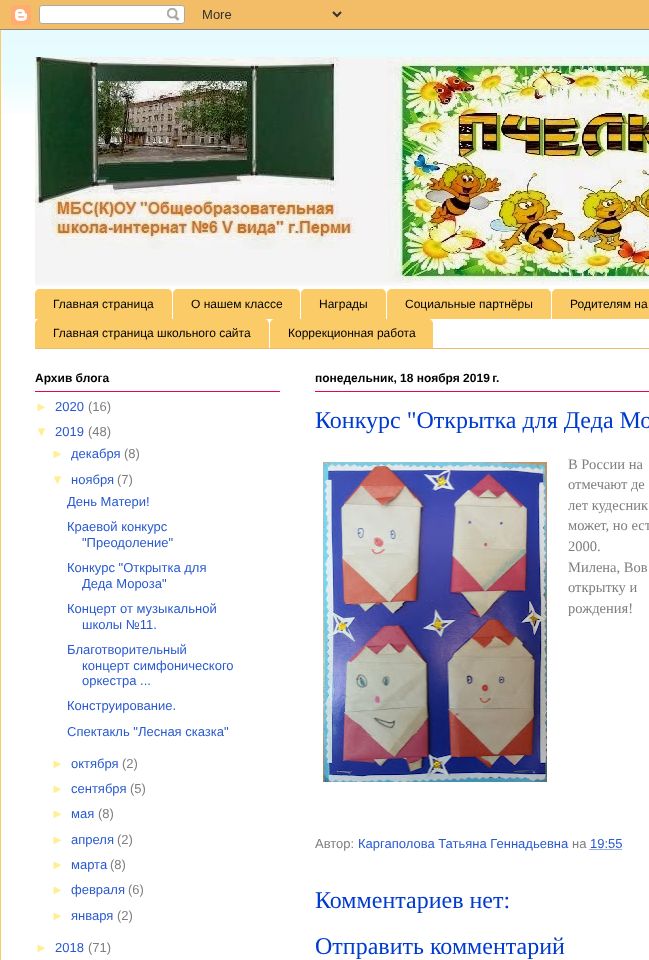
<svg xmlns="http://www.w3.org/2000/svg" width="649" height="960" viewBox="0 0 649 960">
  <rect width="100%" height="100%" fill="#eb8f00"/>
  <image x="0" y="0" width="649" height="30" href="img/1.png"/>
  <path d="M1 30h648v930H1z" fill="#fff"/>
  <image x="1" y="30" width="648" height="84" href="img/2.png"/>
  <path d="M0 30h1v930H0z" fill="#fbcb68"/>
  <image x="35" y="57" width="614" height="229" href="img/3.png"/>
  <path d="M35 348h614v1H35z" fill="#ebbd75"/>
  <path d="M40 289H167C170 289 172 291 172 294V319H35V294C35 291 37 289 40 289Z" fill="#fbcb68"/>
  <path d="M178 289H295C298 289 300 291 300 294V319H173V294C173 291 175 289 178 289Z" fill="#fbcb68"/>
  <path d="M306 289H381C384 289 386 291 386 294V319H301V294C301 291 303 289 306 289Z" fill="#fbcb68"/>
  <path d="M392 289H546C549 289 551 291 551 294V319H387V294C387 291 389 289 392 289Z" fill="#fbcb68"/>
  <path d="M557 289H649C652 289 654 291 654 294V319H552V294C552 291 554 289 557 289Z" fill="#fbcb68"/>
  <path d="M40 319H264C267 319 269 321 269 324V348H35V324C35 321 37 319 40 319Z" fill="#fbcb68"/>
  <path d="M275 319H428C431 319 433 321 433 324V348H270V324C270 321 272 319 275 319Z" fill="#fbcb68"/>
  <path d="M35 391h245v1H35z" fill="#eb005c"/>
  <path d="M315 391h334v1H315z" fill="#eb005c"/>
  <image x="323" y="462" width="224" height="320" href="img/4.png"/>
  <path d="M589.5 849.5H622" fill="none" stroke="#2959d0" stroke-dasharray="1 1"/>
  <g font-family="Liberation Sans" font-size="12" fill="#000">
    <text x="53" y="308">Главная страница</text>
    <text x="191" y="308">О нашем классе</text>
    <text x="319" y="308">Награды</text>
    <text x="405" y="308">Социальные партнёры</text>
    <text x="570" y="308">Родителям на</text>
    <text x="53" y="337">Главная страница школьного сайта</text>
    <text x="288" y="337">Коррекционная работа</text>
  </g>
  <text x="35" y="382" font-family="Liberation Sans" font-size="12" font-weight="bold" fill="#000">Архив блога</text>
  <text x="35" y="411" font-family="Liberation Sans" font-size="13" fill="#ffee93">►</text>
  <text x="55" y="411" font-family="Liberation Sans" font-size="13" fill="#2959d0">2020</text>
  <text x="88" y="411" font-family="Liberation Sans" font-size="13" fill="#7e7e7e">(16)</text>
  <text x="35" y="436" font-family="Liberation Sans" font-size="13" fill="#ffee93">▼</text>
  <text x="55" y="436" font-family="Liberation Sans" font-size="13" fill="#2959d0">2019</text>
  <text x="88" y="436" font-family="Liberation Sans" font-size="13" fill="#7e7e7e">(48)</text>
  <text x="51" y="458" font-family="Liberation Sans" font-size="13" fill="#ffee93">►</text>
  <text x="71" y="458" font-family="Liberation Sans" font-size="13" fill="#2959d0">декабря</text>
  <text x="124" y="458" font-family="Liberation Sans" font-size="13" fill="#7e7e7e">(8)</text>
  <text x="51" y="484" font-family="Liberation Sans" font-size="13" fill="#ffee93">▼</text>
  <text x="71" y="484" font-family="Liberation Sans" font-size="13" fill="#2959d0">ноября</text>
  <text x="117" y="484" font-family="Liberation Sans" font-size="13" fill="#7e7e7e">(7)</text>
  <g font-family="Liberation Sans" font-size="13" fill="#2959d0">
    <text x="67" y="506">День Матери!</text>
    <text x="67" y="531">Краевой конкурс</text>
    <text x="82" y="547">"Преодоление"</text>
    <text x="67" y="572">Конкурс "Открытка для</text>
    <text x="82" y="588">Деда Мороза"</text>
    <text x="67" y="613">Концерт от музыкальной</text>
    <text x="82" y="629">школы №11.</text>
    <text x="67" y="654">Благотворительный</text>
    <text x="82" y="670">концерт симфонического</text>
    <text x="82" y="685">оркестра ...</text>
    <text x="67" y="710">Конструирование.</text>
    <text x="67" y="736">Спектакль "Лесная сказка"</text>
  </g>
  <text x="51" y="768" font-family="Liberation Sans" font-size="13" fill="#ffee93">►</text>
  <text x="71" y="768" font-family="Liberation Sans" font-size="13" fill="#2959d0">октября</text>
  <text x="122" y="768" font-family="Liberation Sans" font-size="13" fill="#7e7e7e">(2)</text>
  <text x="51" y="793" font-family="Liberation Sans" font-size="13" fill="#ffee93">►</text>
  <text x="71" y="793" font-family="Liberation Sans" font-size="13" fill="#2959d0">сентября</text>
  <text x="130" y="793" font-family="Liberation Sans" font-size="13" fill="#7e7e7e">(5)</text>
  <text x="51" y="818" font-family="Liberation Sans" font-size="13" fill="#ffee93">►</text>
  <text x="71" y="818" font-family="Liberation Sans" font-size="13" fill="#2959d0">мая</text>
  <text x="98" y="818" font-family="Liberation Sans" font-size="13" fill="#7e7e7e">(8)</text>
  <text x="51" y="844" font-family="Liberation Sans" font-size="13" fill="#ffee93">►</text>
  <text x="71" y="844" font-family="Liberation Sans" font-size="13" fill="#2959d0">апреля</text>
  <text x="117" y="844" font-family="Liberation Sans" font-size="13" fill="#7e7e7e">(2)</text>
  <text x="51" y="869" font-family="Liberation Sans" font-size="13" fill="#ffee93">►</text>
  <text x="71" y="869" font-family="Liberation Sans" font-size="13" fill="#2959d0">марта</text>
  <text x="110" y="869" font-family="Liberation Sans" font-size="13" fill="#7e7e7e">(8)</text>
  <text x="51" y="894" font-family="Liberation Sans" font-size="13" fill="#ffee93">►</text>
  <text x="71" y="894" font-family="Liberation Sans" font-size="13" fill="#2959d0">февраля</text>
  <text x="128" y="894" font-family="Liberation Sans" font-size="13" fill="#7e7e7e">(6)</text>
  <text x="51" y="920" font-family="Liberation Sans" font-size="13" fill="#ffee93">►</text>
  <text x="71" y="920" font-family="Liberation Sans" font-size="13" fill="#2959d0">января</text>
  <text x="117" y="920" font-family="Liberation Sans" font-size="13" fill="#7e7e7e">(2)</text>
  <text x="35" y="952" font-family="Liberation Sans" font-size="13" fill="#ffee93">►</text>
  <text x="55" y="952" font-family="Liberation Sans" font-size="13" fill="#2959d0">2018</text>
  <text x="88" y="952" font-family="Liberation Sans" font-size="13" fill="#7e7e7e">(71)</text>
  <text x="315" y="382" font-family="Liberation Sans" font-size="12" font-weight="bold" fill="#000">понедельник, 18 ноября 2019 г.</text>
  <text x="315" y="428" font-family="Liberation Serif" font-size="24" fill="#003bd0">Конкурс "Открытка для Деда Мо</text>
  <g font-family="Liberation Serif" font-size="14.5" fill="#7e7e7e">
    <text x="568" y="469">В России на</text>
    <text x="568" y="489">отмечают де</text>
    <text x="568" y="510">лет кудесник</text>
    <text x="568" y="530">может, но ест</text>
    <text x="568" y="551">2000.</text>
    <text x="568" y="572">Милена, Вов</text>
    <text x="568" y="592">открытку и</text>
    <text x="568" y="613">рождения!</text>
  </g>
  <text x="315" y="848" font-family="Liberation Sans" font-size="13" fill="#7e7e7e">Автор:</text>
  <text x="358" y="848" font-family="Liberation Sans" font-size="13" fill="#2959d0">Каргаполова Татьяна Геннадьевна</text>
  <text x="572" y="848" font-family="Liberation Sans" font-size="13" fill="#7e7e7e">на</text>
  <text x="590" y="848" font-family="Liberation Sans" font-size="13" fill="#2959d0">19:55</text>
  <g font-family="Liberation Serif" font-size="24" fill="#003bd0">
    <text x="315" y="908">Комментариев нет:</text>
    <text x="315" y="954">Отправить комментарий</text>
  </g>
</svg>
